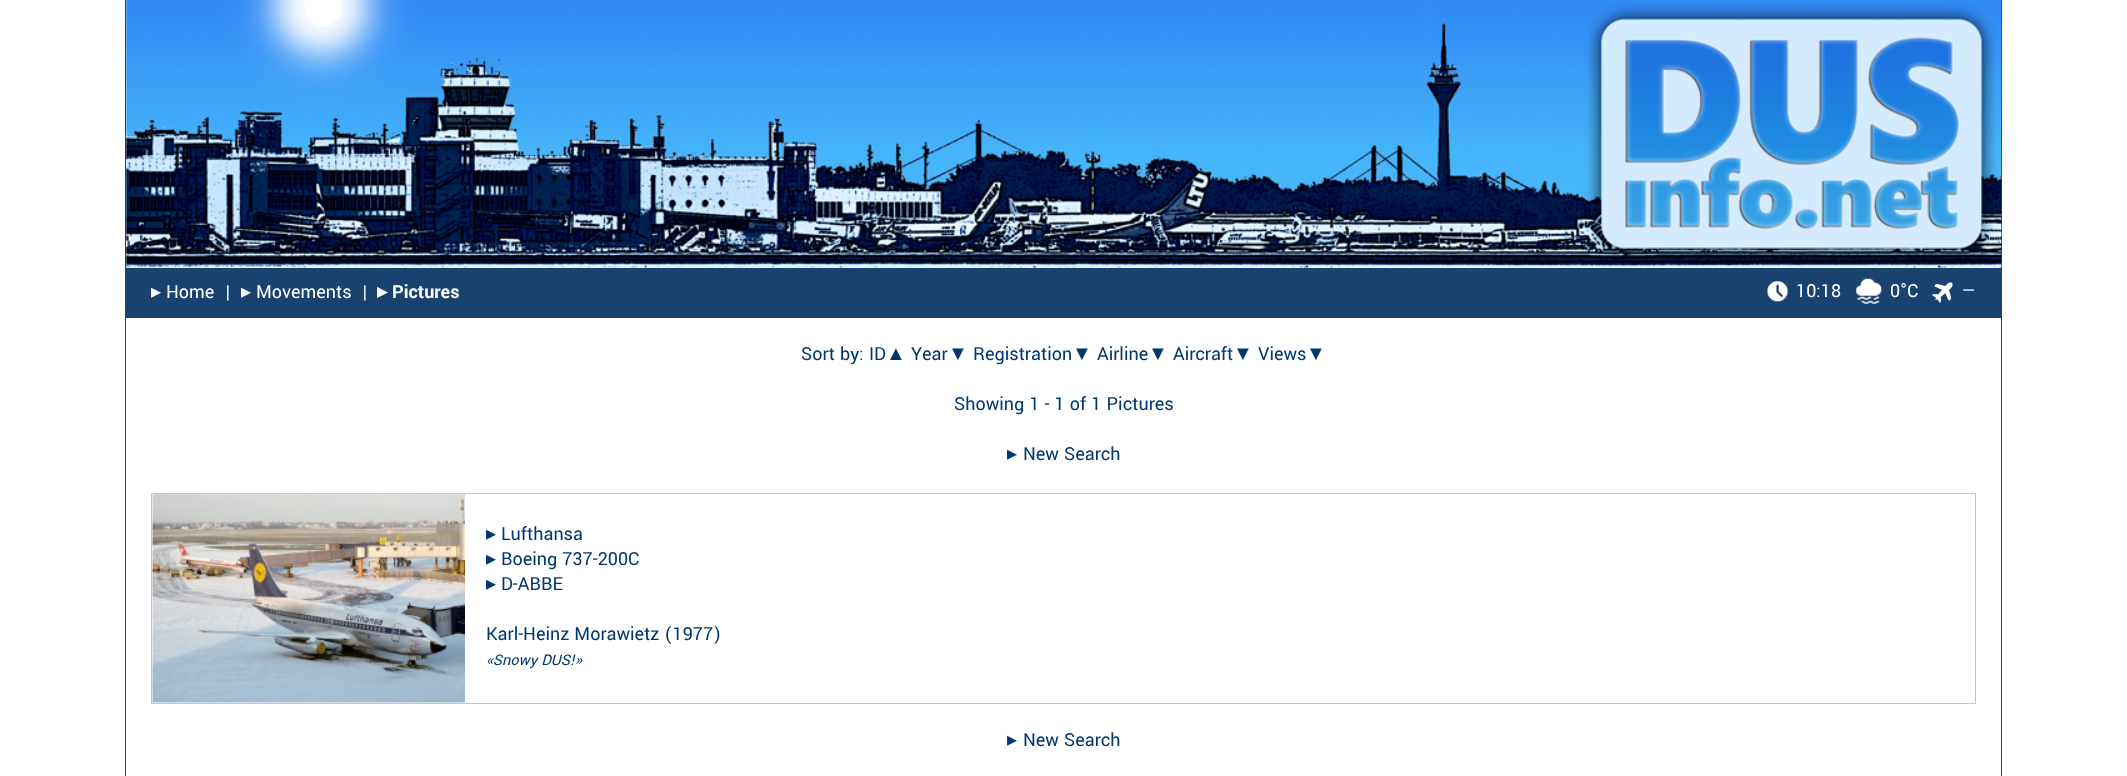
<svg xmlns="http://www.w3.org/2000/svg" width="2127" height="776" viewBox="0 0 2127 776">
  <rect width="100%" height="100%" fill="#fff"/>
  <path d="M2001 0h1v776H2001z" fill="#1a436b"/>
  <path d="M125 0h1v776H125z" fill="#1a436b"/>
  <image x="126" y="0" width="1876" height="268" href="img/1.png"/>
  <path d="M126 268h1875v50H126z" fill="#19426e"/>
  <image x="1767" y="281" width="21" height="21" href="img/2.png"/>
  <image x="1856" y="278" width="26" height="26" href="img/3.png"/>
  <image x="1932" y="282" width="21" height="21" href="img/4.png"/>
  <path d="M151 493h1825v1H151z" fill="#bec9d5"/>
  <path d="M1975 493h1v211H1975z" fill="#bec9d5"/>
  <path d="M151 703h1825v1H151z" fill="#bec9d5"/>
  <path d="M151 493h1v211H151z" fill="#bec9d5"/>
  <image x="152" y="493" width="313" height="210" href="img/5.png"/>
  <text x="151" y="298" font-family="DejaVu Sans" font-size="20" fill="#fff">▸︎</text>
  <g font-family="Yantramanav" font-size="20" fill="#fff">
    <text x="166" y="298">Home</text>
    <text x="225" y="298">|</text>
  </g>
  <text x="241" y="298" font-family="DejaVu Sans" font-size="20" fill="#fff">▸︎</text>
  <g font-family="Yantramanav" font-size="20" fill="#fff">
    <text x="256" y="298">Movements</text>
    <text x="362" y="298">|</text>
  </g>
  <text x="377" y="298" font-family="DejaVu Sans" font-size="20" font-weight="bold" fill="#fff">▸︎</text>
  <text x="392" y="298" font-family="Yantramanav" font-size="20" font-weight="bold" fill="#fff">Pictures</text>
  <g font-family="Yantramanav" font-size="20" fill="#fff">
    <text x="1796" y="297">10:18</text>
    <text x="1890" y="297">0°C</text>
    <text x="1962" y="297">—</text>
  </g>
  <text x="801" y="360" font-family="Yantramanav" font-size="20" fill="#003770">Sort by: ID</text>
  <text x="886" y="360" font-family="Liberation Sans" font-size="20" fill="#003770">▲</text>
  <text x="911" y="360" font-family="Yantramanav" font-size="20" fill="#003770">Year</text>
  <text x="948" y="360" font-family="Liberation Sans" font-size="20" fill="#003770">▼</text>
  <text x="973" y="360" font-family="Yantramanav" font-size="20" fill="#003770">Registration</text>
  <text x="1072" y="360" font-family="Liberation Sans" font-size="20" fill="#003770">▼</text>
  <text x="1097" y="360" font-family="Yantramanav" font-size="20" fill="#003770">Airline</text>
  <text x="1148" y="360" font-family="Liberation Sans" font-size="20" fill="#003770">▼</text>
  <text x="1173" y="360" font-family="Yantramanav" font-size="20" fill="#003770">Aircraft</text>
  <text x="1233" y="360" font-family="Liberation Sans" font-size="20" fill="#003770">▼</text>
  <text x="1258" y="360" font-family="Yantramanav" font-size="20" fill="#003770">Views</text>
  <text x="1306" y="360" font-family="Liberation Sans" font-size="20" fill="#003770">▼</text>
  <text x="954" y="410" font-family="Yantramanav" font-size="20" fill="#003770">Showing 1 - 1 of 1 Pictures</text>
  <text x="1007" y="460" font-family="DejaVu Sans" font-size="20" fill="#003770">▸︎</text>
  <text x="1023" y="460" font-family="Yantramanav" font-size="20" fill="#003770">New Search</text>
  <text x="486" y="540" font-family="DejaVu Sans" font-size="20" fill="#003770">▸︎</text>
  <text x="501" y="540" font-family="Yantramanav" font-size="20" fill="#003770">Lufthansa</text>
  <text x="486" y="565" font-family="DejaVu Sans" font-size="20" fill="#003770">▸︎</text>
  <text x="501" y="565" font-family="Yantramanav" font-size="20" fill="#003770">Boeing 737-200C</text>
  <text x="486" y="590" font-family="DejaVu Sans" font-size="20" fill="#003770">▸︎</text>
  <g font-family="Yantramanav" font-size="20" fill="#003770">
    <text x="501" y="590">D-ABBE</text>
    <text x="486" y="640">Karl-Heinz Morawietz (1977)</text>
  </g>
  <text x="486" y="665" font-family="Yantramanav" font-size="16.25" font-style="italic" fill="#003770">«Snowy DUS!»</text>
  <text x="1007" y="746" font-family="DejaVu Sans" font-size="20" fill="#003770">▸︎</text>
  <text x="1023" y="746" font-family="Yantramanav" font-size="20" fill="#003770">New Search</text>
</svg>
